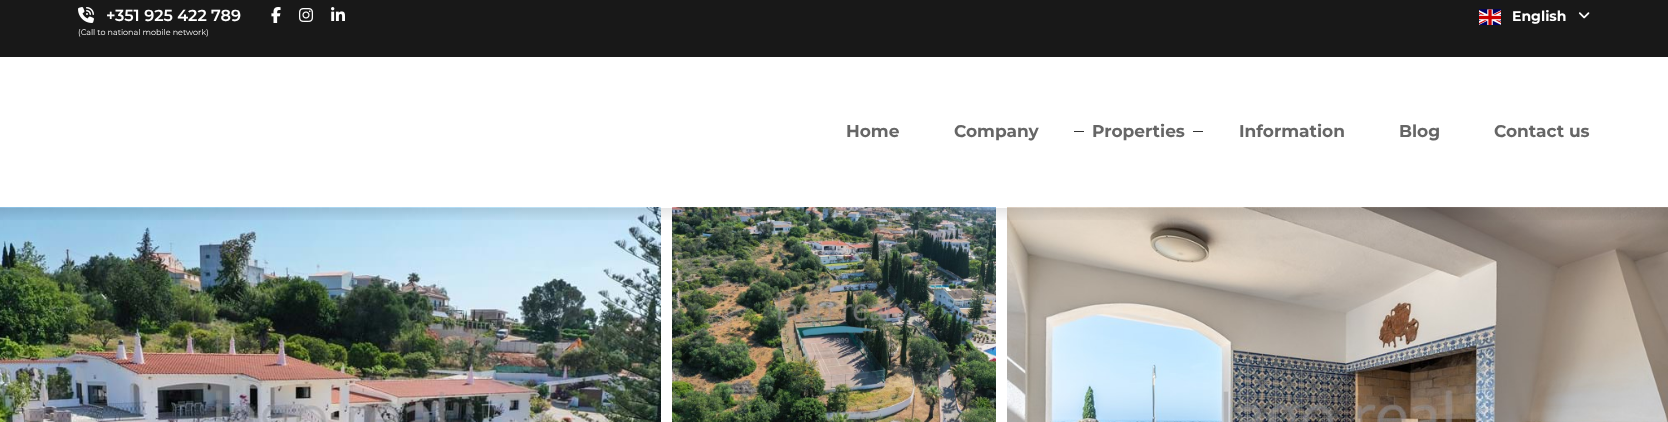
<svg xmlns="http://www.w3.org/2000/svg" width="1668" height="422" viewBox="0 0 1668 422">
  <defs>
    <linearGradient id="g1" gradientUnits="userSpaceOnUse" x1="834" y1="208" x2="834" y2="223"><stop offset="0" stop-color="#000" stop-opacity="0.1"/><stop offset="1" stop-color="#000" stop-opacity="0"/></linearGradient>
  </defs>
  <rect width="100%" height="100%" fill="#fff"/>
  <path d="M0 0h1668v57H0z" fill="#181818"/>
  <image x="78" y="7" width="16" height="16" href="img/1.png"/>
  <image x="271" y="7" width="10" height="16" href="img/2.png"/>
  <image x="299" y="8" width="14" height="14" href="img/3.png"/>
  <image x="331" y="7" width="14" height="14" href="img/4.png"/>
  <image x="1479" y="9" width="22" height="16" href="img/5.png"/>
  <image x="1578" y="12" width="12" height="7" href="img/6.png"/>
  <path d="M1074 131h10v1H1074z" fill="#333"/>
  <path d="M1193 131h10v1H1193z" fill="#333"/>
  <image x="0" y="207" width="661" height="215" href="img/7.png"/>
  <image x="672" y="207" width="324" height="215" href="img/8.png"/>
  <image x="1007" y="207" width="661" height="215" href="img/9.png"/>
  <path d="M0 208h1668v12H0z" fill="url(#g1)"/>
  <text x="106" y="21" font-family="Montserrat" font-size="16" font-weight="600" fill="#fff">+351 925 422 789</text>
  <text x="78" y="35" font-family="Montserrat" font-size="8" fill="#fff">(Call to national mobile network)</text>
  <text x="1512" y="21" font-family="Montserrat" font-size="14" font-weight="bold" fill="#fff">English</text>
  <g font-family="Montserrat" font-size="17" font-weight="bold" fill="#666">
    <text x="846" y="137">Home</text>
    <text x="954" y="137">Company</text>
    <text x="1092" y="137">Properties</text>
    <text x="1239" y="137">Information</text>
    <text x="1399" y="137">Blog</text>
    <text x="1494" y="137">Contact us</text>
  </g>
</svg>
